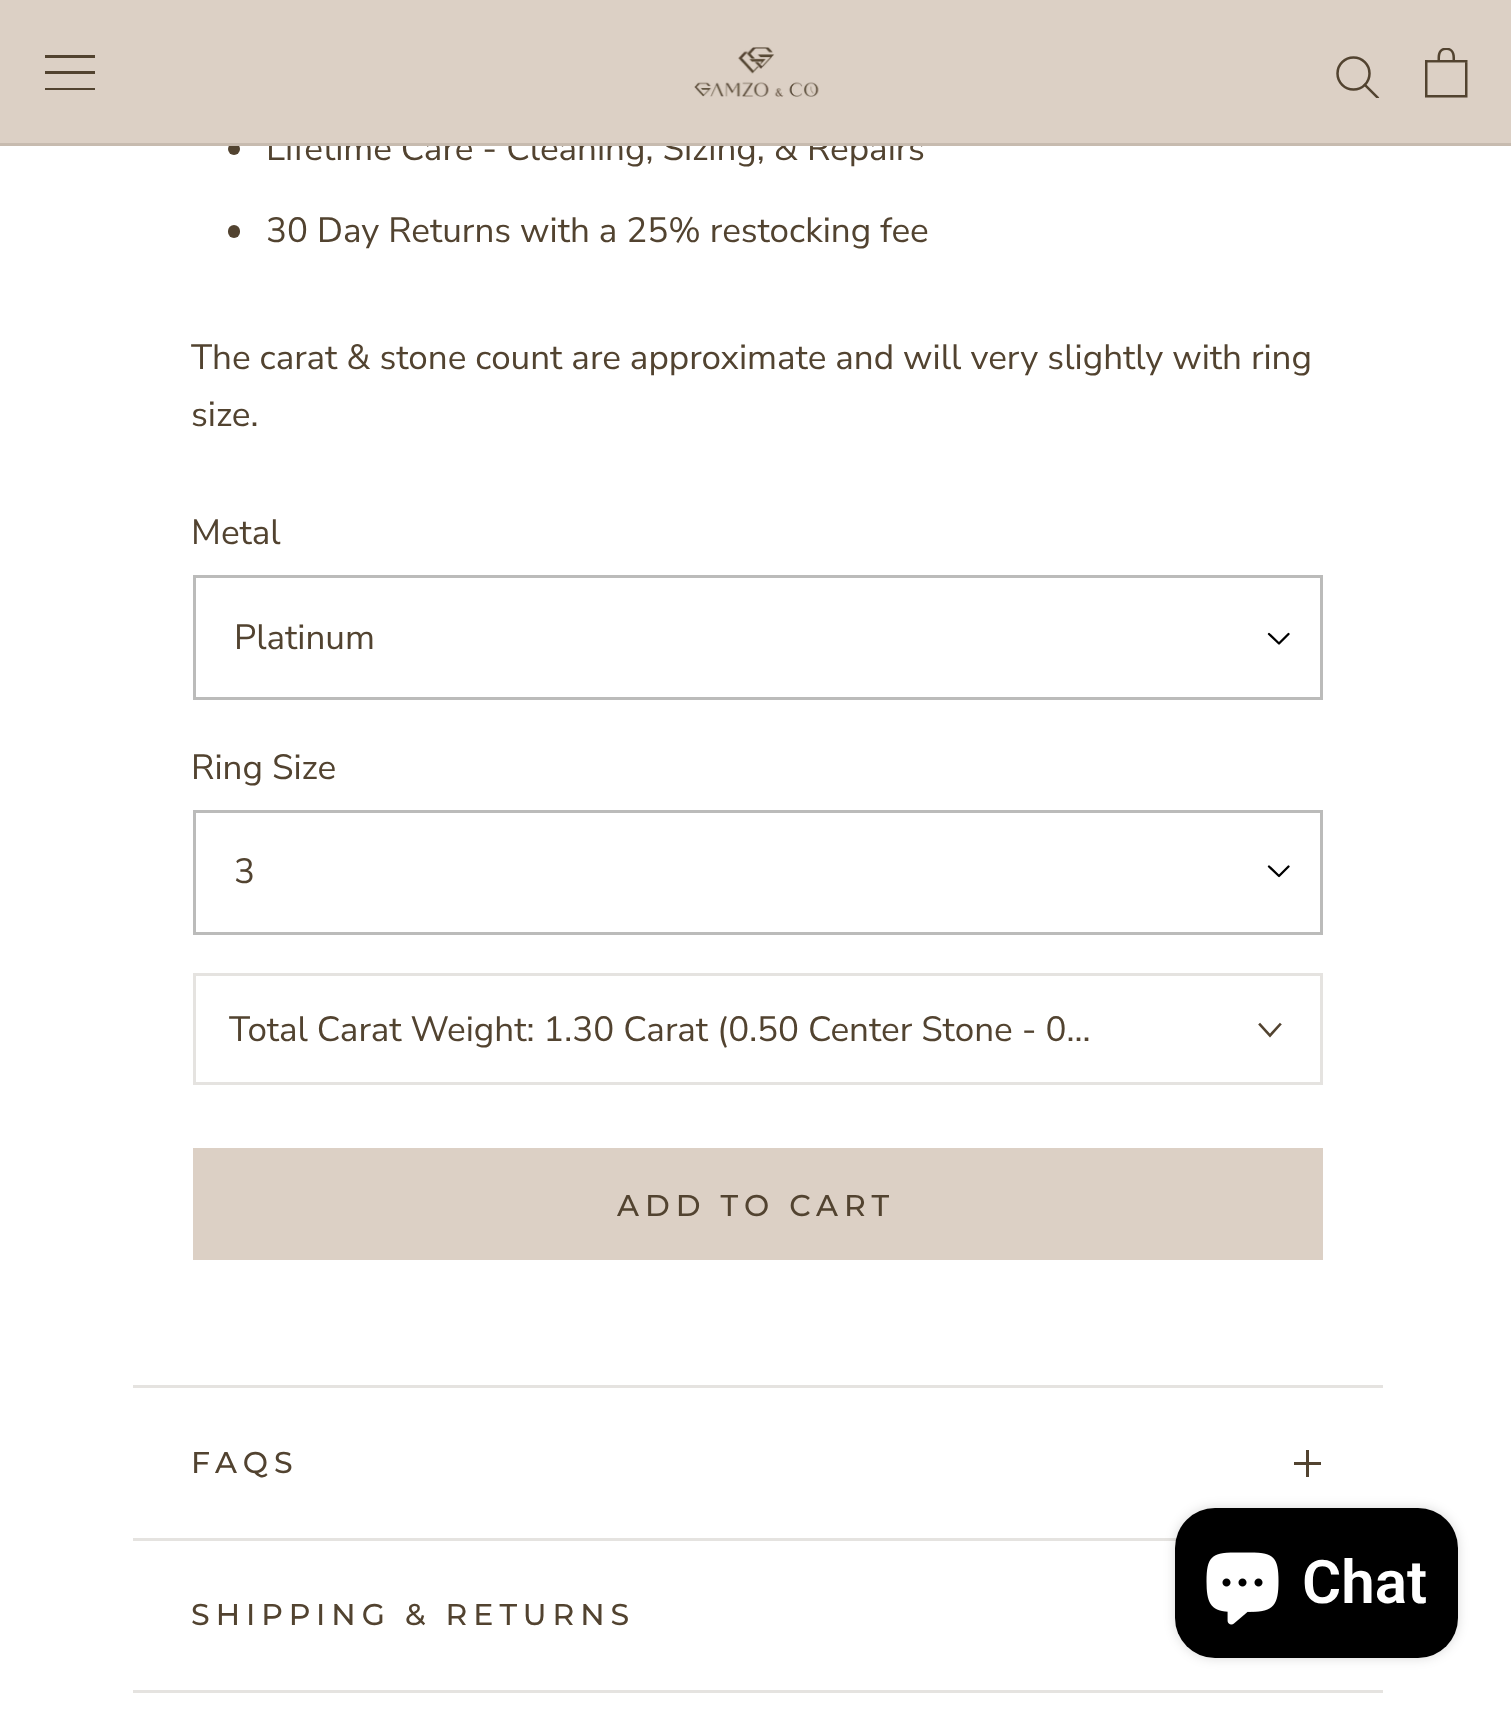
<svg xmlns="http://www.w3.org/2000/svg" width="1511" height="1710" viewBox="0 0 1511 1710">
  <defs>
    <clipPath id="clip1"><path d="M1335 55h45v43H1335z"/></clipPath>
  </defs>
  <rect width="100%" height="100%" fill="#fff"/>
  <circle cx="234" cy="149" r="6" fill="#524330"/>
  <rect x="228" y="225" width="12" height="13" rx="6" fill="#524330"/>
  <path d="M1288.5 634L1279 643.5L1269 634" fill="none" stroke="#000" stroke-width="2.3" stroke-linecap="round" stroke-linejoin="round"/>
  <path d="M194.5 576.5h1127v122H194.5z" fill="none" stroke="#bbbbba" stroke-width="3"/>
  <path d="M1288.5 866.5L1279 876L1269 866.5" fill="none" stroke="#000" stroke-width="2.3" stroke-linecap="round" stroke-linejoin="round"/>
  <path d="M194.5 811.5h1127v122H194.5z" fill="none" stroke="#bbbbba" stroke-width="3"/>
  <path d="M194.5 974.5h1127v109H194.5z" fill="none" stroke="#e5e3e0" stroke-width="3"/>
  <path d="M1280 1024.5L1270 1035.5L1260 1024.5" fill="none" stroke="#524330" stroke-width="2.6" stroke-linecap="square"/>
  <path d="M194.5 1149.5h1127v109H194.5z" fill="none" stroke="#dcd0c5" stroke-width="3"/>
  <path d="M196 1151h1124v106H196z" fill="#dcd0c5"/>
  <path d="M133 1385h1250v3H133z" fill="#e5e3e0"/>
  <path d="M133 1538h1044v3H133z" fill="#e5e3e0"/>
  <path d="M1306 1450h3v27H1306z" fill="#524330"/>
  <path d="M1294 1462h27v3H1294z" fill="#524330"/>
  <path d="M133 1690h1250v3H133z" fill="#e5e3e0"/>
  <rect x="1175" y="1508" width="283" height="150" rx="40" fill="#00000026" filter="blur(6px)"/>
  <rect x="1175" y="1508" width="283" height="150" rx="40" fill="#000"/>
  <image x="1206" y="1552" width="73" height="73" href="img/3.png"/>
  <text x="266" y="160" font-family="Nunito Sans" font-size="35" fill="#524330">Lifetime Care - Cleaning, Sizing, &amp; Repairs</text>
  <path d="M0 0h1511v143H0z" fill="#dcd0c5"/>
  <image x="1425" y="48" width="43" height="50" href="img/2.png"/>
  <g clip-path="url(#clip1)">
    <path d="M1377.5 97.5L1365 85" fill="none" stroke="#524330" stroke-width="2.5" stroke-linecap="square"/>
  </g>
  <circle cx="1353.5" cy="73.5" r="16" fill="none" stroke="#524330" stroke-width="2.5"/>
  <image x="694" y="47" width="125" height="50" href="img/1.png"/>
  <path d="M45 90V88H95V90ZM45 71H95V74H45ZM45 55H95V58H45Z" fill="#524330"/>
  <path d="M0 143h1511v3H0z" fill="#c7bbaf"/>
  <g font-family="Nunito Sans" font-size="35" fill="#524330">
    <text x="266" y="242">30 Day Returns with a 25% restocking fee</text>
    <text x="191" y="369">The carat &amp; stone count are approximate and will very slightly with ring</text>
    <text x="191" y="426">size.</text>
    <text x="191" y="544">Metal</text>
    <text x="234" y="649">Platinum</text>
    <text x="191" y="779">Ring Size</text>
    <text x="234" y="883">3</text>
    <text x="229" y="1041">Total Carat Weight: 1.30 Carat (0.50 Center Stone - 0…</text>
  </g>
  <g font-family="Montserrat" font-size="30" font-weight="500" letter-spacing="6" fill="#524330">
    <text x="617" y="1216">ADD TO CART</text>
    <text x="191" y="1473">FAQS</text>
    <text x="191" y="1625">SHIPPING &amp; RETURNS</text>
  </g>
  <text x="1302" y="1603" font-family="Roboto" font-size="60" font-weight="600" fill="#fff">Chat</text>
</svg>
